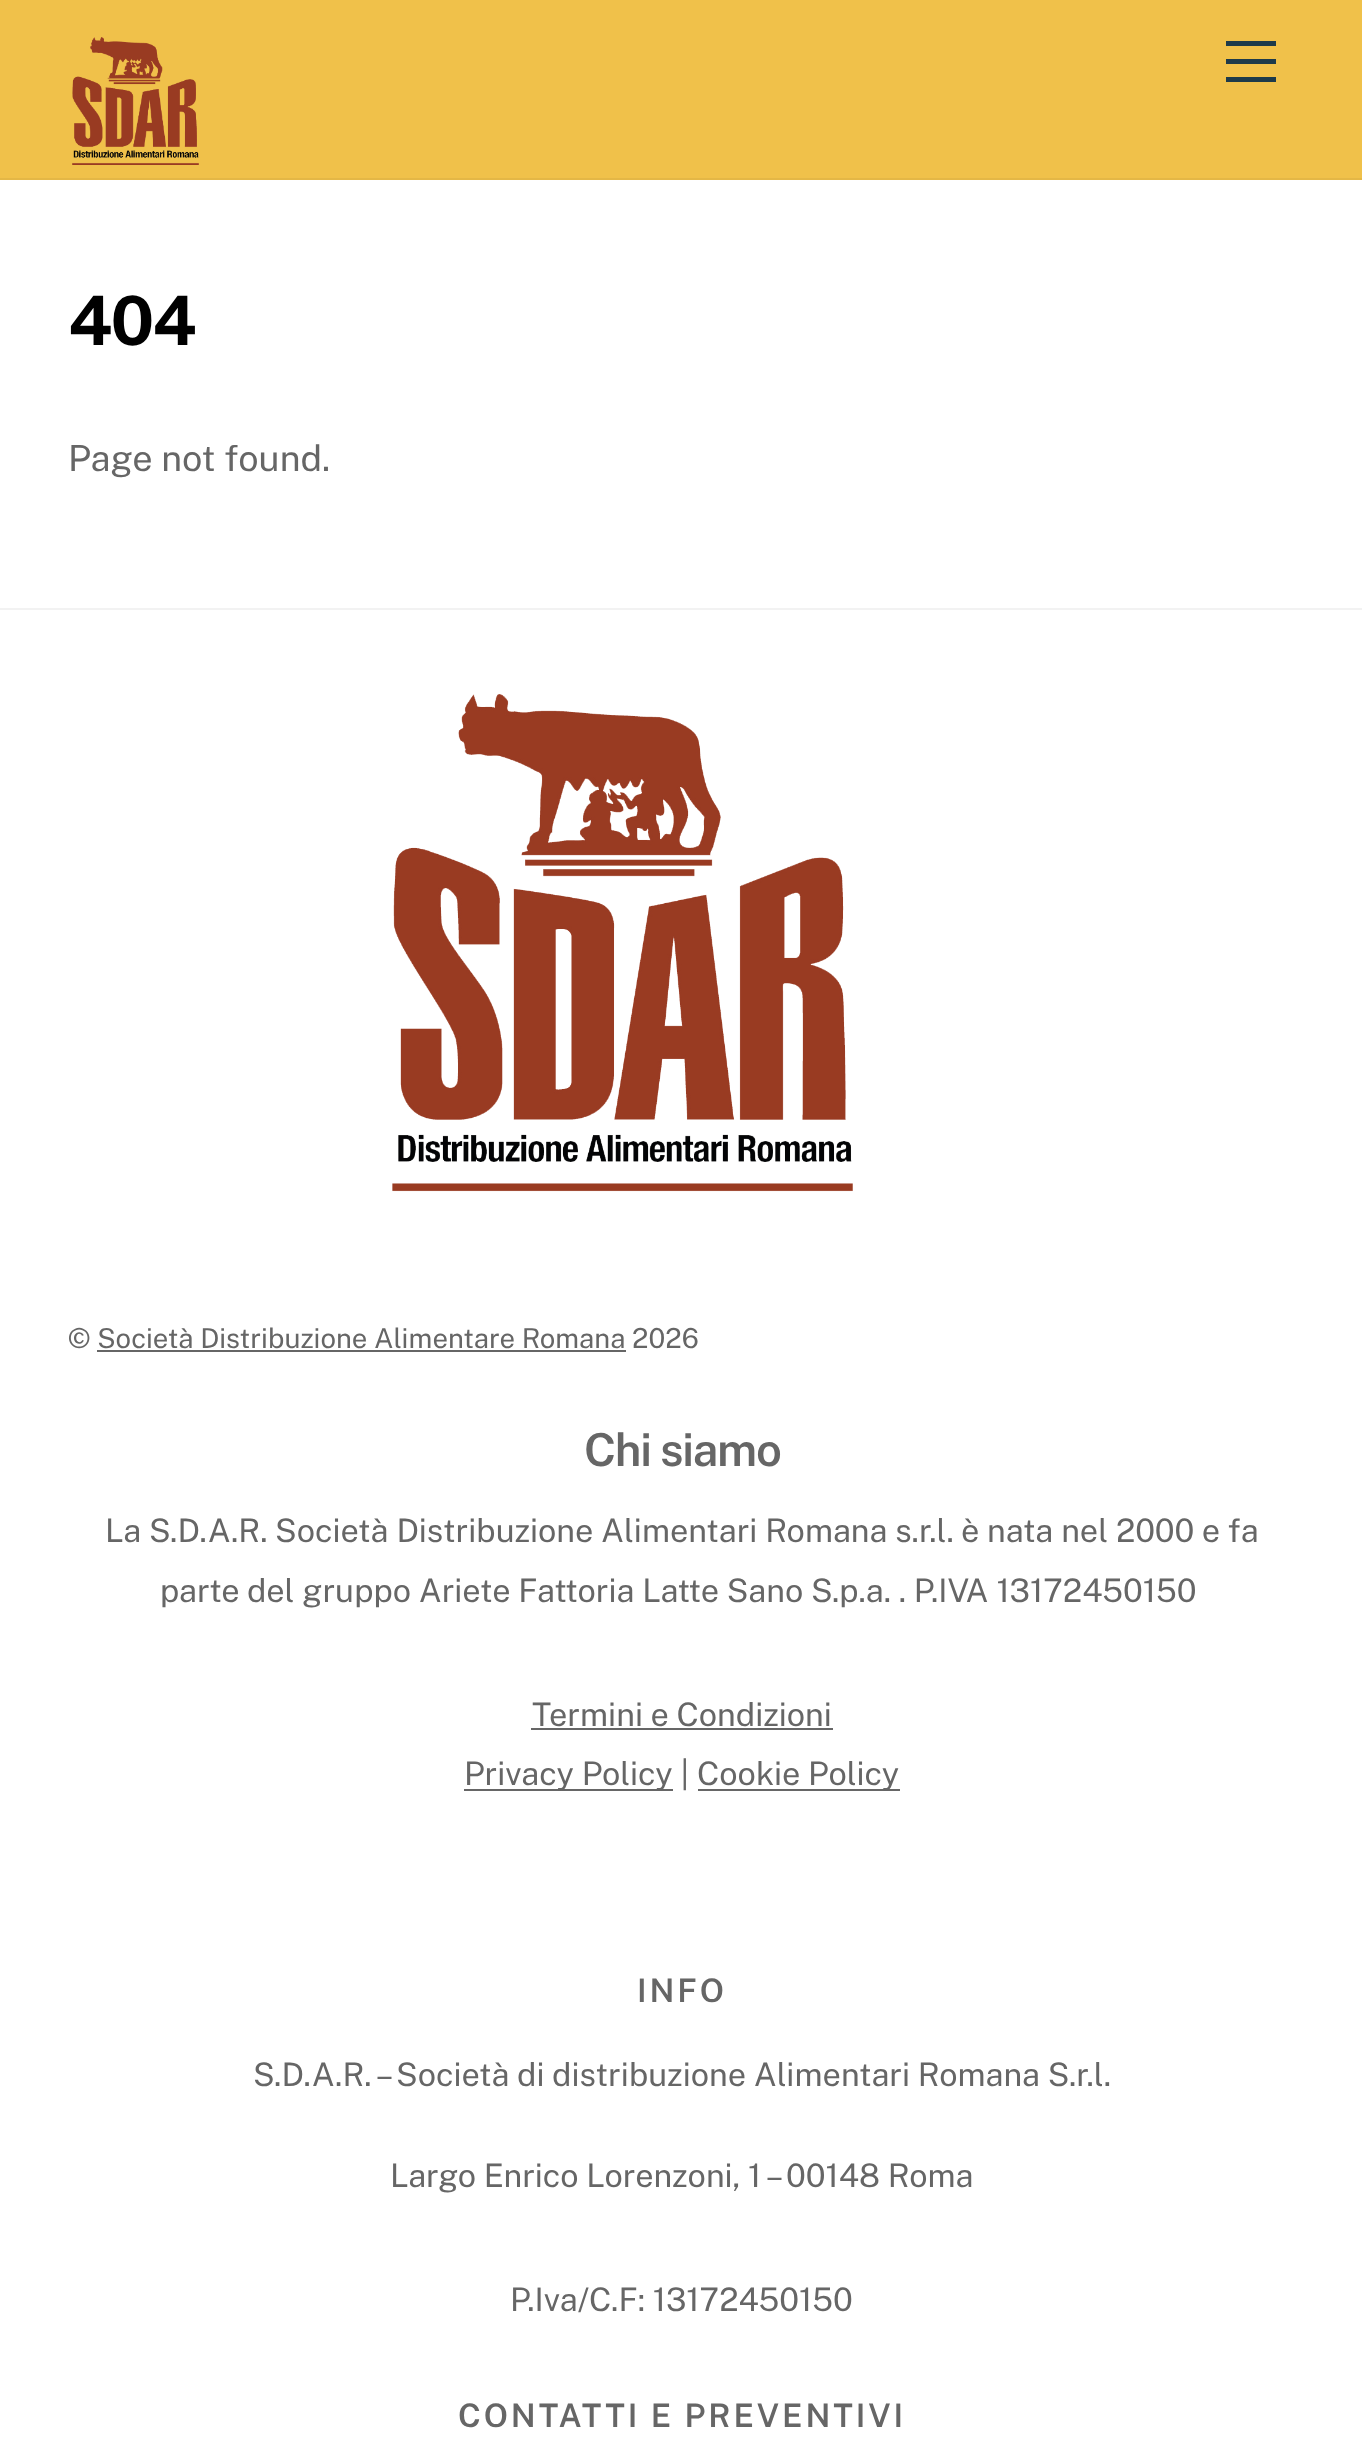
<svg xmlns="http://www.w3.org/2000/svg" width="1362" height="2463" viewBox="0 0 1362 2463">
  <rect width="100%" height="100%" fill="#fff"/>
  <path d="M0 0h1362v178H0z" fill="#f0c14a"/>
  <path d="M0 178h1362v2H0z" fill="#e4b746"/>
  <image x="72" y="37" width="127" height="128" href="img/1.png"/>
  <path d="M1226 77h50v5H1226z" fill="#1e3b4a"/>
  <path d="M1226 41h50v5H1226z" fill="#1e3b4a"/>
  <path d="M1226 59h50v5H1226z" fill="#1e3b4a"/>
  <path d="M0 608h1362v2H0z" fill="#f2f2f2"/>
  <image x="392" y="694" width="461" height="498" href="img/2.png"/>
  <path d="M97 1350h529v2H97z" fill="#666"/>
  <path d="M531 1728h302v2H531z" fill="#666"/>
  <path d="M464 1789h209v2H464z" fill="#666"/>
  <path d="M698 1789h202v2H698z" fill="#666"/>
  <text x="68" y="345" font-family="Public Sans" font-size="68" font-weight="bold" letter-spacing="-2" fill="#000">404</text>
  <text x="68" y="471" font-family="Public Sans" font-size="36" fill="#666">Page not found.</text>
  <text x="68" y="1348" font-family="Public Sans" font-size="27.5" fill="#666">© Società Distribuzione Alimentare Romana 2026</text>
  <text x="584" y="1466" font-family="Public Sans" font-size="45.5" font-weight="600" letter-spacing="-1.25" fill="#666">Chi siamo</text>
  <g font-family="Public Sans" font-size="32.4" fill="#666">
    <text x="105" y="1542">La S.D.A.R. Società Distribuzione Alimentari Romana s.r.l. è nata nel 2000 e fa</text>
    <text x="160" y="1602">parte del gruppo Ariete Fattoria Latte Sano S.p.a. . P.IVA 13172450150</text>
    <text x="532" y="1726">Termini e Condizioni</text>
    <text x="464" y="1785">Privacy Policy |</text>
    <text x="697" y="1785">Cookie Policy</text>
  </g>
  <text x="637" y="2002" font-family="Public Sans" font-size="32.4" font-weight="600" letter-spacing="2.9" fill="#666">INFO</text>
  <g font-family="Public Sans" font-size="32.4" fill="#666">
    <text x="253" y="2086">S.D.A.R. – Società di distribuzione Alimentari Romana S.r.l.</text>
    <text x="390" y="2187">Largo Enrico Lorenzoni, 1 – 00148 Roma</text>
    <text x="510" y="2311">P.Iva/C.F: 13172450150</text>
  </g>
  <text x="458" y="2427" font-family="Public Sans" font-size="32.4" font-weight="600" letter-spacing="2.9" fill="#666">CONTATTI E PREVENTIVI</text>
</svg>
